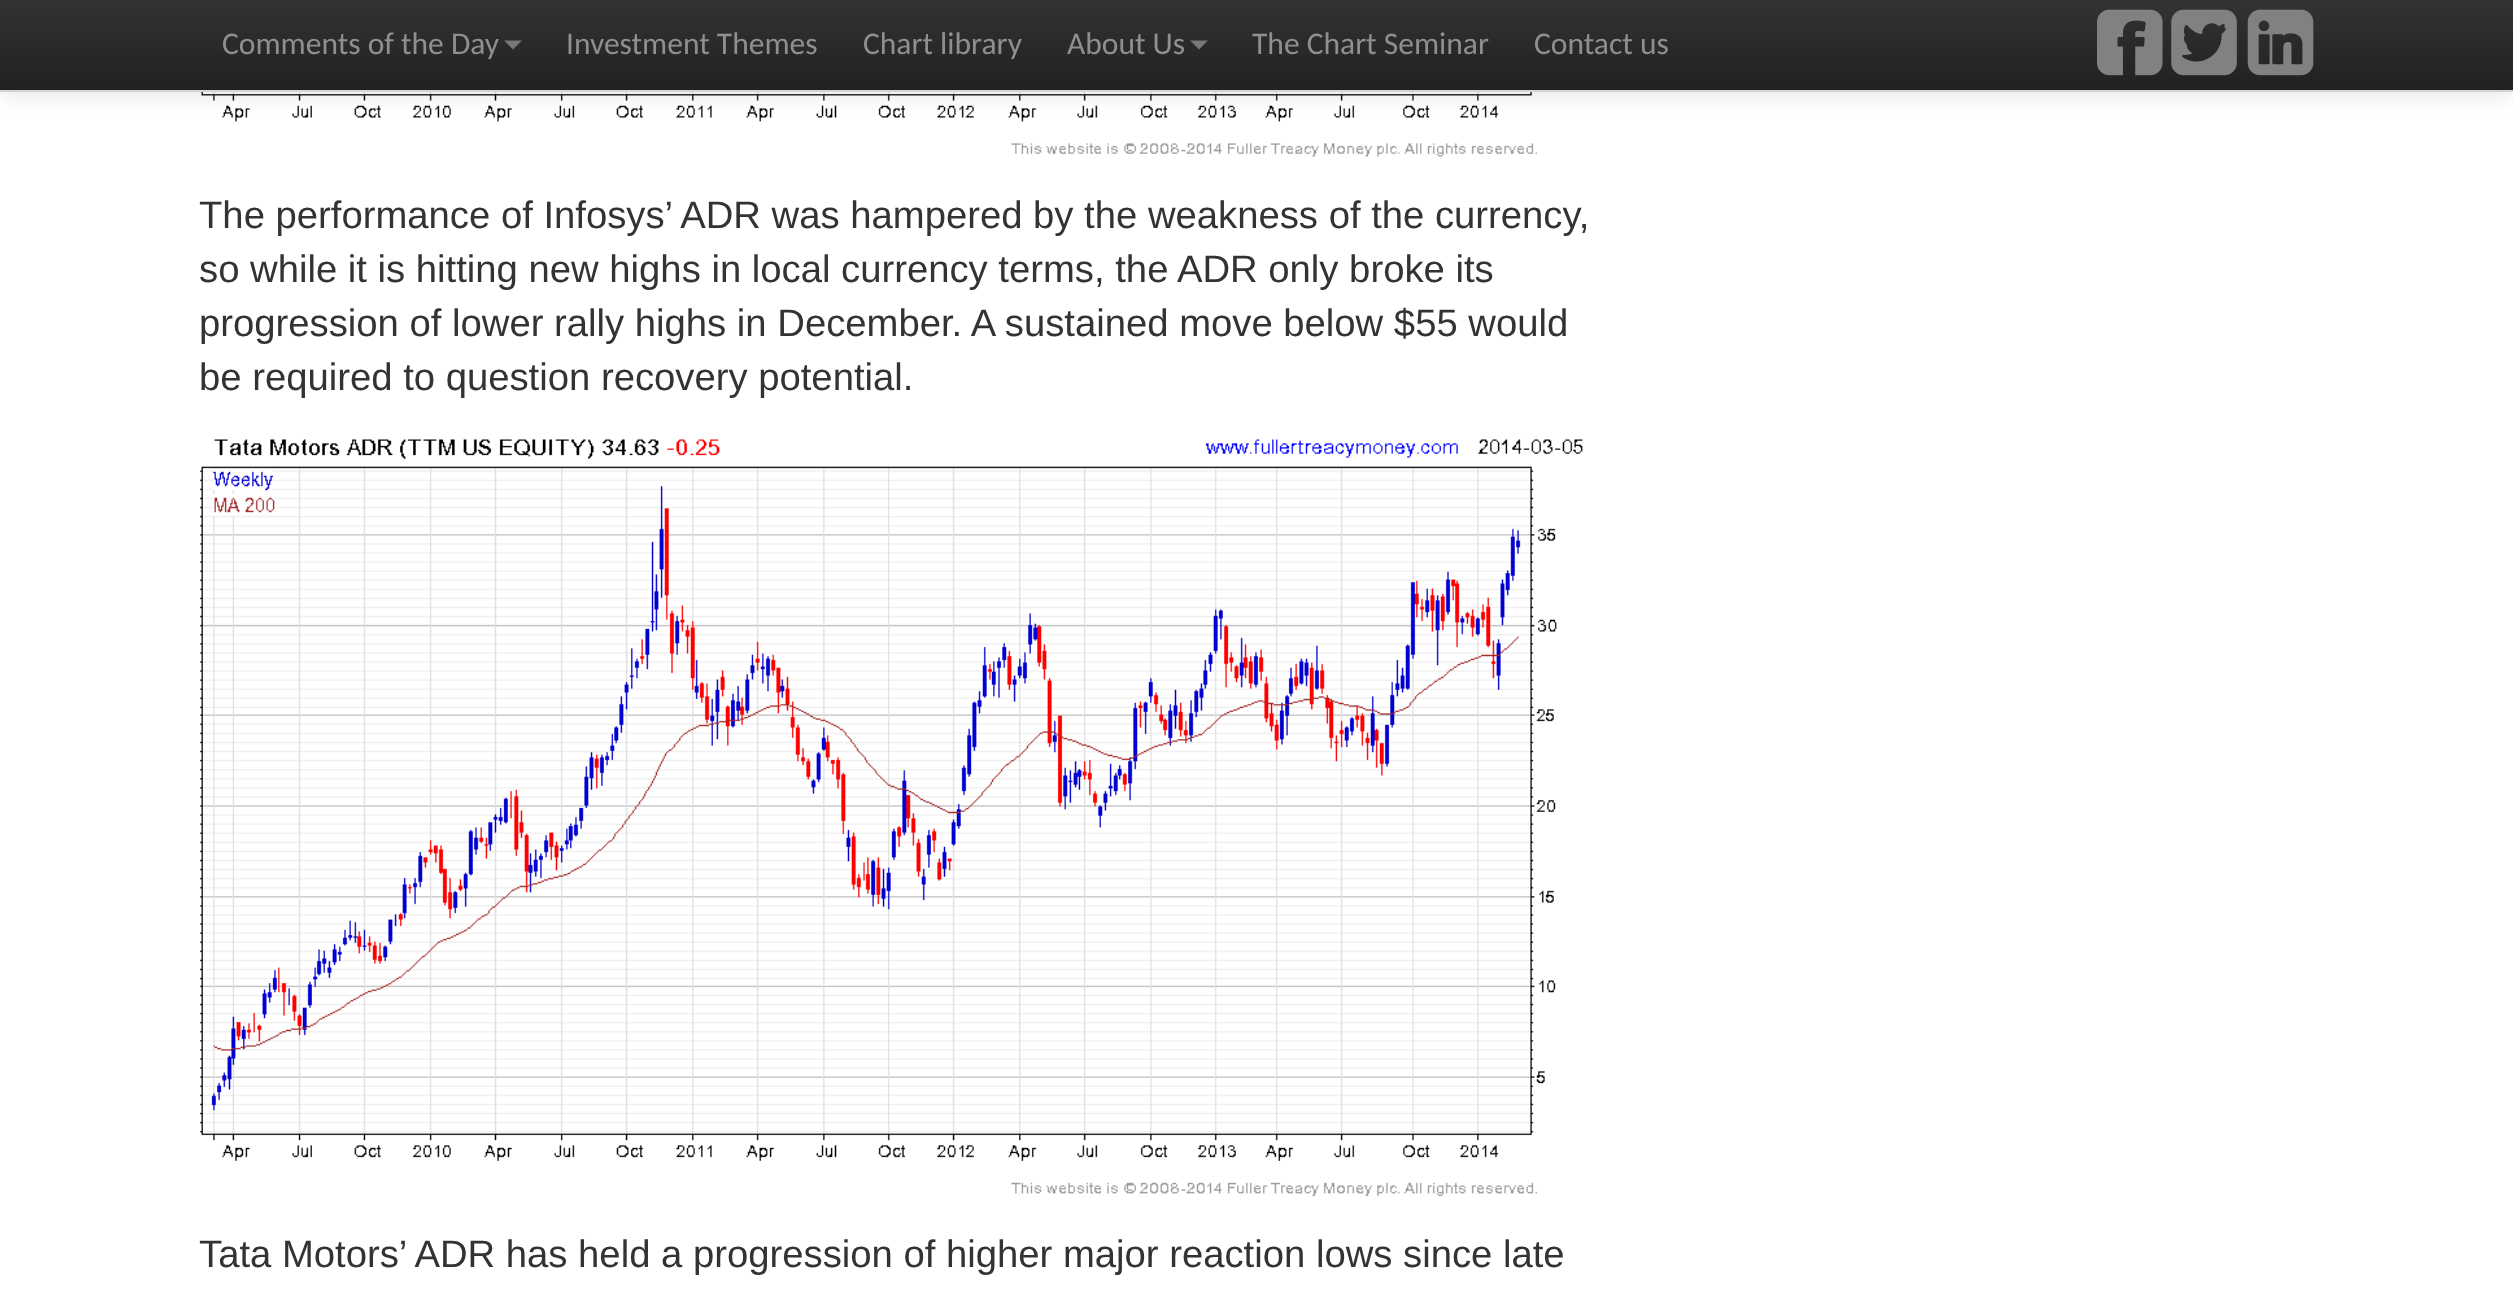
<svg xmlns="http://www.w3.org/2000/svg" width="2513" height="1301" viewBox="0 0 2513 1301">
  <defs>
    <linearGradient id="g1" gradientUnits="userSpaceOnUse" x1="1257" y1="0" x2="1257" y2="90"><stop offset="0" stop-color="#333"/><stop offset="1" stop-color="#212121"/></linearGradient>
  </defs>
  <rect width="100%" height="100%" fill="#fff"/>
  <image x="200" y="92" width="1354" height="65" href="img/4.png"/>
  <path d="M0 2h2513v93H0z" fill="#0000001a" filter="blur(11px)"/>
  <path d="M0 0h2513v90H0z" fill="url(#g1)"/>
  <path d="M0 90h2513v2H0z" fill="#d4d4d4"/>
  <path d="M504 40.5H522L513 49.5Z" fill="#777"/>
  <path d="M1190 40.5H1208L1199 49.5Z" fill="#777"/>
  <image x="2097" y="9" width="66" height="67" href="img/1.png"/>
  <image x="2171" y="9" width="66" height="67" href="img/2.png"/>
  <image x="2247" y="9" width="67" height="67" href="img/3.png"/>
  <image x="200" y="439" width="1383" height="758" href="img/5.png"/>
  <g font-family="Carlito" font-size="31.5" fill="#8f8f8f">
    <text x="222" y="54">Comments of the Day</text>
    <text x="566" y="54">Investment Themes</text>
    <text x="863" y="54">Chart library</text>
    <text x="1067" y="54">About Us</text>
    <text x="1252" y="54">The Chart Seminar</text>
    <text x="1534" y="54">Contact us</text>
  </g>
  <g font-family="Liberation Sans" font-size="38.25" fill="#333">
    <text x="199" y="228">The performance of Infosys’ ADR was hampered by the weakness of the currency,</text>
    <text x="199" y="282">so while it is hitting new highs in local currency terms, the ADR only broke its</text>
    <text x="199" y="336">progression of lower rally highs in December. A sustained move below $55 would</text>
    <text x="199" y="390">be required to question recovery potential.</text>
    <text x="199" y="1267">Tata Motors’ ADR has held a progression of higher major reaction lows since late</text>
  </g>
</svg>
